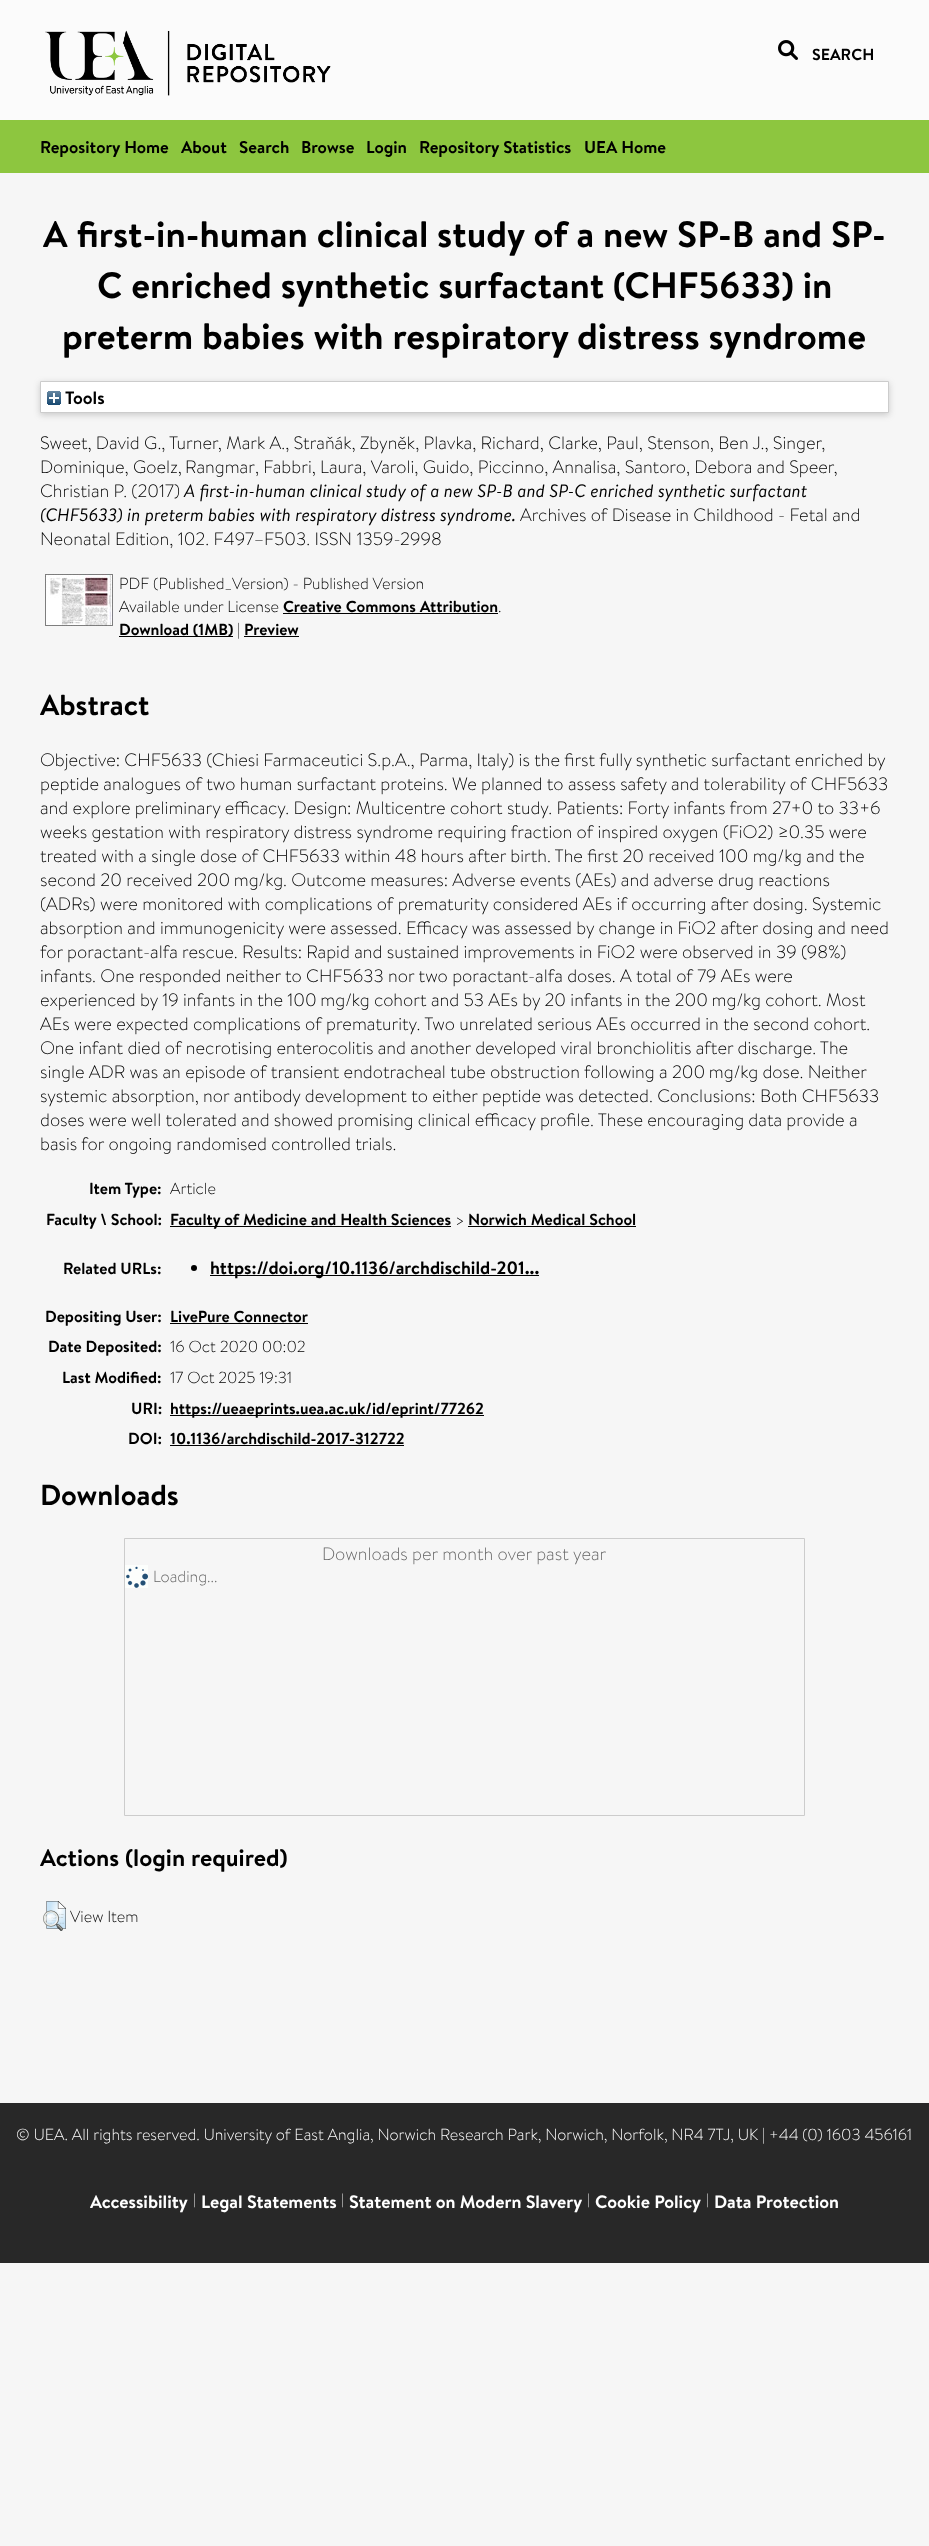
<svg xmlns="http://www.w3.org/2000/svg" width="929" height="2546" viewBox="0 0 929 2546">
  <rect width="100%" height="100%" fill="#f6f6f6"/>
  <path d="M0 0h929v120H0z" fill="#fbfbfb"/>
  <image x="45" y="30" width="286" height="66" href="img/1.png"/>
  <image x="778" y="40" width="20" height="20" href="img/2.png"/>
  <path d="M0 120h929v53H0z" fill="#8dc63f"/>
  <path d="M40 383h849v32H40z" fill="#6464644d" filter="blur(3px)"/>
  <path d="M40.5 381.5h848v31H40.5z" fill="#fff" stroke="#ccc"/>
  <image x="47" y="391" width="14" height="14" href="img/3.png"/>
  <image x="45" y="574" width="68" height="52" href="img/4.png"/>
  <path d="M283 613h215v1H283z" fill="#000"/>
  <path d="M119 636h114v1H119z" fill="#000"/>
  <path d="M244 636h55v1H244z" fill="#000"/>
  <path d="M170 1226h281v1H170z" fill="#000"/>
  <path d="M468 1226h168v1H468z" fill="#000"/>
  <circle cx="194" cy="1268" r="3" fill="#000"/>
  <path d="M210 1275h329v1H210z" fill="#000"/>
  <path d="M170 1323h138v1H170z" fill="#000"/>
  <path d="M170 1415h314v1H170z" fill="#000"/>
  <path d="M170 1445h234v1H170z" fill="#000"/>
  <path d="M124.5 1538.5h680v277H124.5z" fill="none" stroke="#ccc"/>
  <image x="125" y="1565" width="23" height="23" href="img/5.png"/>
  <image x="43" y="1901" width="23" height="30" href="img/6.png"/>
  <path d="M0 2103h929v160H0z" fill="#282828"/>
  <text x="812" y="60" font-family="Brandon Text" font-size="16" font-weight="bold" fill="#000">SEARCH</text>
  <g font-family="Brandon Text" font-size="17" font-weight="bold" fill="#000">
    <text x="40" y="153">Repository Home</text>
    <text x="181" y="153">About</text>
    <text x="239" y="153">Search</text>
    <text x="301" y="153">Browse</text>
    <text x="366" y="153">Login</text>
    <text x="419" y="153">Repository Statistics</text>
    <text x="584" y="153">UEA Home</text>
  </g>
  <g font-family="Brandon Text" font-size="36.8" font-weight="bold" fill="#000">
    <text x="43" y="247">A first-in-human clinical study of a new SP-B and SP-</text>
    <text x="97" y="298">C enriched synthetic surfactant (CHF5633) in</text>
    <text x="62" y="349">preterm babies with respiratory distress syndrome</text>
  </g>
  <text x="65" y="404" font-family="Brandon Text" font-size="18" font-weight="bold" fill="#000">Tools</text>
  <g font-family="Brandon Text" font-size="18" font-weight="300" fill="#000">
    <text x="40" y="449">Sweet, David G.,</text>
    <text x="169" y="449">Turner, Mark A., Straňák, Zbyněk, Plavka, Richard, Clarke, Paul, Stenson, Ben J., Singer,</text>
    <text x="40" y="473">Dominique,</text>
    <text x="133" y="473" word-spacing="-1">Goelz, Rangmar</text>
    <text x="255" y="473">, Fabbri, Laura, Varoli, Guido, Piccinno, Annalisa, Santoro, Debora and Speer,</text>
    <text x="40" y="497">Christian P. (2017)</text>
  </g>
  <g font-family="Brandon Text" font-size="18" font-style="italic" fill="#000">
    <text x="184" y="497">A first-in-human clinical study of a new SP-B and SP-C enriched synthetic surfactant</text>
    <text x="40" y="521">(CHF5633) in preterm babies with respiratory distress syndrome.</text>
  </g>
  <g font-family="Brandon Text" font-size="18" font-weight="300" fill="#000">
    <text x="520" y="521">Archives of Disease in Childhood - Fetal and</text>
    <text x="40" y="545">Neonatal Edition, 102. F497–F503. ISSN 1359-2998</text>
  </g>
  <g font-family="Brandon Text" font-size="16" font-weight="300" fill="#000">
    <text x="119" y="589">PDF (Published_Version) - Published Version</text>
    <text x="119" y="612">Available under License</text>
  </g>
  <text x="283" y="612" font-family="Brandon Text" font-size="16" font-weight="bold" fill="#000">Creative Commons Attribution</text>
  <text x="498" y="612" font-family="Brandon Text" font-size="16" font-weight="300" fill="#000">.</text>
  <text x="119" y="635" font-family="Brandon Text" font-size="16" font-weight="bold" fill="#000">Download (1MB)</text>
  <text x="237" y="635" font-family="Brandon Text" font-size="16" font-weight="300" fill="#000">|</text>
  <text x="244" y="635" font-family="Brandon Text" font-size="16" font-weight="bold" fill="#000">Preview</text>
  <text x="40" y="715" font-family="Brandon Text" font-size="29" font-weight="bold" fill="#000">Abstract</text>
  <g font-family="Brandon Text" font-size="18" font-weight="300" fill="#000">
    <text x="40" y="766">Objective: CHF5633 (Chiesi Farmaceutici S.p.A., Parma, Italy) is the first fully synthetic surfactant enriched by</text>
    <text x="40" y="790">peptide analogues of two human surfactant proteins. We planned to assess safety and tolerability of CHF5633</text>
    <text x="40" y="814">and explore preliminary efficacy. Design: Multicentre cohort study. Patients: Forty infants from 27+0 to 33+6</text>
    <text x="40" y="838">weeks gestation with respiratory distress syndrome requiring fraction of inspired oxygen (FiO2) ≥0.35 were</text>
    <text x="40" y="862">treated with a single dose of CHF5633 within 48 hours after birth. The first 20 received 100 mg/kg and the</text>
    <text x="40" y="886">second 20 received 200 mg/kg. Outcome measures: Adverse events (AEs) and adverse drug reactions</text>
    <text x="40" y="910">(ADRs) were monitored with complications of prematurity considered AEs if occurring after dosing. Systemic</text>
    <text x="40" y="934">absorption and immunogenicity were assessed. Efficacy was assessed by change in FiO2 after dosing and need</text>
    <text x="40" y="958">for poractant-alfa rescue. Results: Rapid and sustained improvements in FiO2 were observed in 39 (98%)</text>
    <text x="40" y="982">infants. One responded neither to CHF5633 nor two poractant-alfa doses. A total of 79 AEs were</text>
    <text x="40" y="1006">experienced by 19 infants in the 100 mg/kg cohort and 53 AEs by 20 infants in the 200 mg/kg cohort. Most</text>
    <text x="40" y="1030">AEs were expected complications of prematurity. Two unrelated serious AEs occurred in the second cohort.</text>
    <text x="40" y="1054">One infant died of necrotising enterocolitis and another developed viral bronchiolitis after discharge. The</text>
    <text x="40" y="1078">single ADR was an episode of transient endotracheal tube obstruction following a 200 mg/kg dose. Neither</text>
    <text x="40" y="1102">systemic absorption, nor antibody development to either peptide was detected. Conclusions: Both CHF5633</text>
    <text x="40" y="1126">doses were well tolerated and showed promising clinical efficacy profile. These encouraging data provide a</text>
    <text x="40" y="1150">basis for ongoing randomised controlled trials.</text>
  </g>
  <text x="89" y="1194" font-family="Brandon Text" font-size="16" font-weight="bold" fill="#000">Item Type:</text>
  <text x="170" y="1194" font-family="Brandon Text" font-size="16" font-weight="300" fill="#000">Article</text>
  <g font-family="Brandon Text" font-size="16" font-weight="bold" fill="#000">
    <text x="46" y="1225">Faculty \ School:</text>
    <text x="170" y="1225">Faculty of Medicine and Health Sciences</text>
  </g>
  <text x="455" y="1225" font-family="Brandon Text" font-size="16" font-weight="300" fill="#000">&gt;</text>
  <g font-family="Brandon Text" font-size="16" font-weight="bold" fill="#000">
    <text x="468" y="1225">Norwich Medical School</text>
    <text x="63" y="1274">Related URLs:</text>
  </g>
  <text x="210" y="1274" font-family="Brandon Text" font-size="18" font-weight="bold" fill="#000">https://doi.org/10.1136/archdischild-201...</text>
  <g font-family="Brandon Text" font-size="16" font-weight="bold" fill="#000">
    <text x="45" y="1322">Depositing User:</text>
    <text x="170" y="1322">LivePure Connector</text>
    <text x="48" y="1352">Date Deposited:</text>
  </g>
  <text x="170" y="1352" font-family="Brandon Text" font-size="16" font-weight="300" fill="#000">16 Oct 2020 00:02</text>
  <text x="62" y="1383" font-family="Brandon Text" font-size="16" font-weight="bold" fill="#000">Last Modified:</text>
  <text x="170" y="1383" font-family="Brandon Text" font-size="16" font-weight="300" fill="#000">17 Oct 2025 19:31</text>
  <g font-family="Brandon Text" font-size="16" font-weight="bold" fill="#000">
    <text x="131" y="1414">URI:</text>
    <text x="170" y="1414">https://ueaeprints.uea.ac.uk/id/eprint/77262</text>
    <text x="128" y="1444">DOI:</text>
    <text x="170" y="1444">10.1136/archdischild-2017-312722</text>
  </g>
  <text x="40" y="1505" font-family="Brandon Text" font-size="29" font-weight="bold" fill="#000">Downloads</text>
  <text x="322" y="1560" font-family="Brandon Text" font-size="18" font-weight="300" fill="#666">Downloads per month over past year</text>
  <text x="153" y="1582" font-family="Brandon Text" font-size="16" font-weight="300" fill="#666">Loading...</text>
  <text x="40" y="1866" font-family="Brandon Text" font-size="24" font-weight="bold" fill="#000">Actions (login required)</text>
  <text x="70" y="1922" font-family="Brandon Text" font-size="16" font-weight="300" fill="#000">View Item</text>
  <text x="16" y="2140" font-family="Brandon Text" font-size="16" font-weight="300" fill="#fff">© UEA. All rights reserved. University of East Anglia, Norwich Research Park, Norwich, Norfolk, NR4 7TJ, UK | +44 (0) 1603 456161</text>
  <text x="90" y="2208" font-family="Brandon Text" font-size="18" font-weight="bold" fill="#fff">Accessibility</text>
  <text x="193" y="2204" font-family="Brandon Text" font-size="14" font-weight="300" fill="#fff">|</text>
  <text x="201" y="2208" font-family="Brandon Text" font-size="18" font-weight="bold" fill="#fff">Legal Statements</text>
  <text x="341" y="2204" font-family="Brandon Text" font-size="14" font-weight="300" fill="#fff">|</text>
  <text x="349" y="2208" font-family="Brandon Text" font-size="18" font-weight="bold" fill="#fff">Statement on Modern Slavery</text>
  <text x="587" y="2204" font-family="Brandon Text" font-size="14" font-weight="300" fill="#fff">|</text>
  <text x="595" y="2208" font-family="Brandon Text" font-size="18" font-weight="bold" fill="#fff">Cookie Policy</text>
  <text x="706" y="2204" font-family="Brandon Text" font-size="14" font-weight="300" fill="#fff">|</text>
  <text x="714" y="2208" font-family="Brandon Text" font-size="18" font-weight="bold" fill="#fff">Data Protection</text>
</svg>
